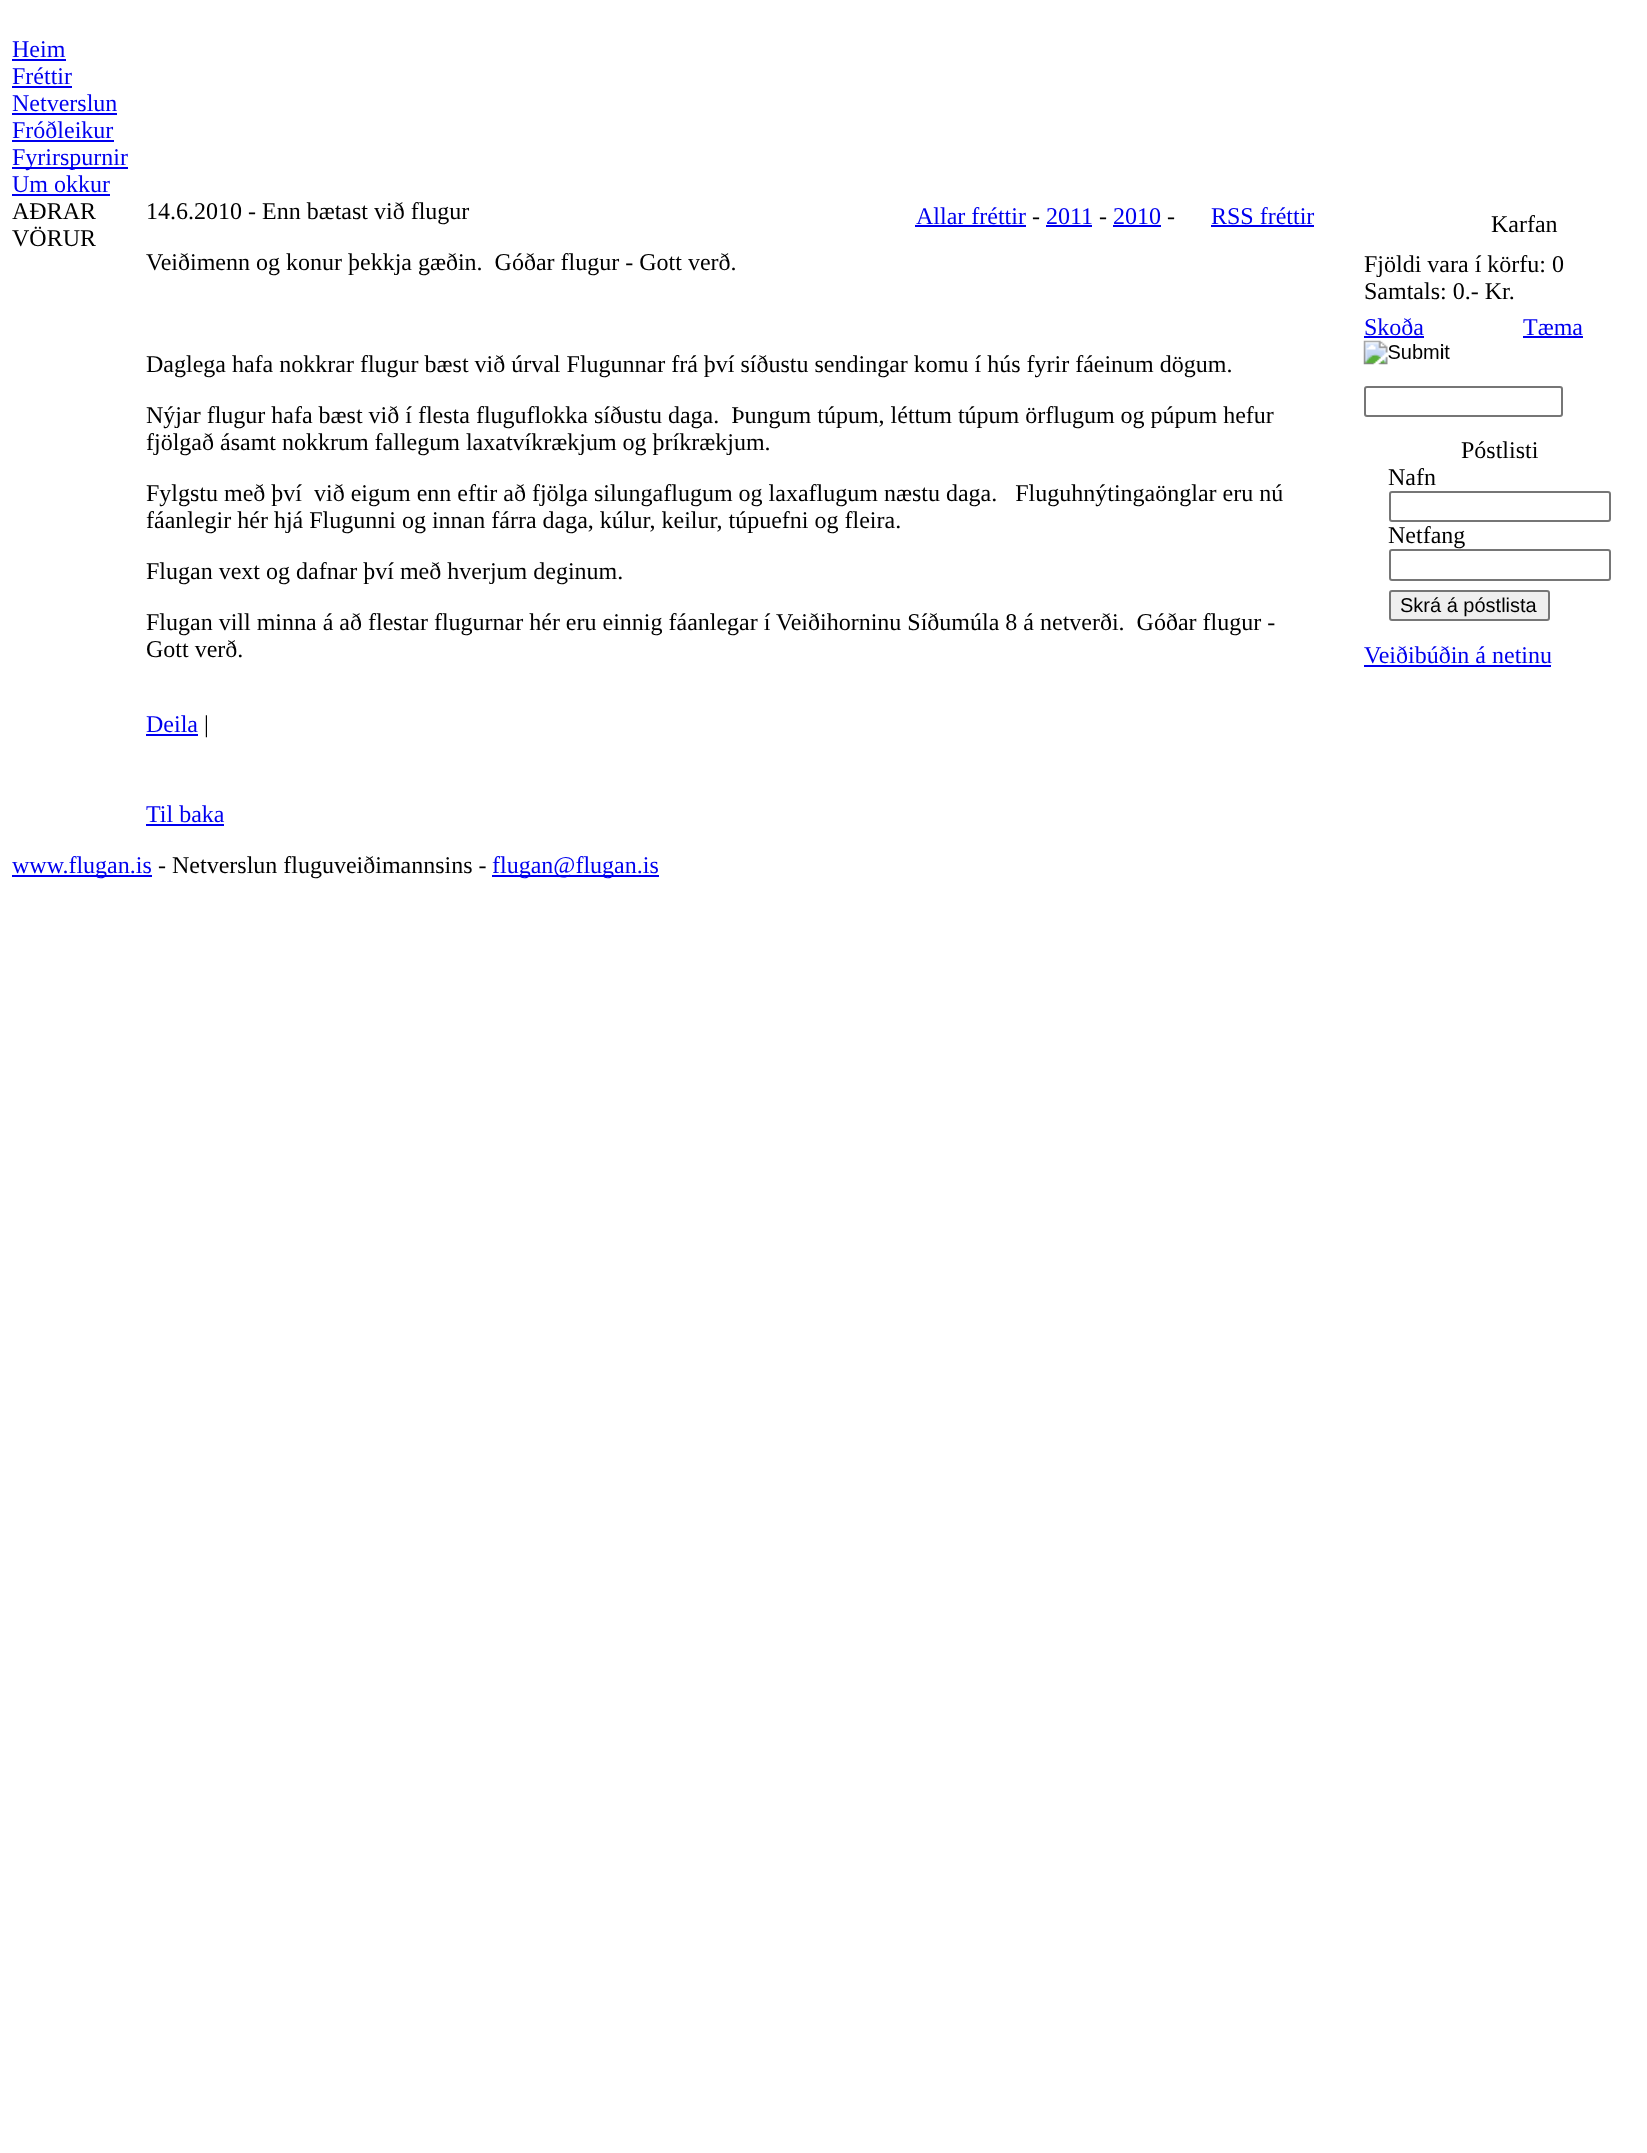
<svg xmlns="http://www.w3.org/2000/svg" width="1647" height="2153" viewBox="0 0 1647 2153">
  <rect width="100%" height="100%" fill="#fff"/>
  <path d="M12 59h54v2H12z" fill="#00e"/>
  <path d="M12 86h60v2H12z" fill="#00e"/>
  <path d="M12 113h105v2H12z" fill="#00e"/>
  <path d="M12 140h102v2H12z" fill="#00e"/>
  <path d="M12 167h116v2H12z" fill="#00e"/>
  <path d="M12 194h98v2H12z" fill="#00e"/>
  <path d="M915 225h111v2H915z" fill="#00e"/>
  <path d="M1046 225h46v2H1046z" fill="#00e"/>
  <path d="M1113 225h48v2H1113z" fill="#00e"/>
  <path d="M1211 225h103v2H1211z" fill="#00e"/>
  <path d="M146 734h52v2H146z" fill="#00e"/>
  <path d="M146 824h78v2H146z" fill="#00e"/>
  <path d="M1364 336h60v2H1364z" fill="#00e"/>
  <path d="M1523 336h60v2H1523z" fill="#00e"/>
  <image x="1363" y="340" width="87" height="25" href="img/1.png"/>
  <rect x="1365" y="387" width="197" height="29" rx="2" fill="none" stroke="#767676" stroke-width="2"/>
  <rect x="1390" y="492" width="220" height="29" rx="2" fill="none" stroke="#767676" stroke-width="2"/>
  <rect x="1390" y="550" width="220" height="30" rx="2" fill="none" stroke="#767676" stroke-width="2"/>
  <rect x="1390" y="591" width="159" height="29" rx="2" fill="#efefef" stroke="#767676" stroke-width="2"/>
  <path d="M1364 665h187v2H1364z" fill="#00e"/>
  <path d="M12 875h140v2H12z" fill="#00e"/>
  <path d="M492 875h167v2H492z" fill="#00e"/>
  <g font-family="Liberation Serif" font-size="24" fill="#00e">
    <text x="12" y="57">Heim</text>
    <text x="12" y="84">Fréttir</text>
    <text x="12" y="111">Netverslun</text>
    <text x="12" y="138">Fróðleikur</text>
    <text x="12" y="165">Fyrirspurnir</text>
    <text x="12" y="192">Um okkur</text>
  </g>
  <g font-family="Liberation Serif" font-size="24" fill="#000">
    <text x="12" y="219">AÐRAR</text>
    <text x="12" y="246">VÖRUR</text>
    <text x="146" y="219">14.6.2010 - Enn bætast við flugur</text>
  </g>
  <text x="916" y="224" font-family="Liberation Serif" font-size="24" fill="#00e">Allar fréttir</text>
  <text x="1032" y="224" font-family="Liberation Serif" font-size="24" fill="#000">-</text>
  <text x="1046" y="224" font-family="Liberation Serif" font-size="24" fill="#00e">2011</text>
  <text x="1099" y="224" font-family="Liberation Serif" font-size="24" fill="#000">-</text>
  <text x="1113" y="224" font-family="Liberation Serif" font-size="24" fill="#00e">2010</text>
  <text x="1167" y="224" font-family="Liberation Serif" font-size="24" fill="#000">-</text>
  <text x="1211" y="224" font-family="Liberation Serif" font-size="24" fill="#00e">RSS fréttir</text>
  <g font-family="Liberation Serif" font-size="24" fill="#000">
    <text x="146" y="270" xml:space="preserve">Veiðimenn og konur þekkja gæðin.  Góðar flugur - Gott verð.</text>
    <text x="146" y="372">Daglega hafa nokkrar flugur bæst við úrval Flugunnar frá því síðustu sendingar komu í hús fyrir fáeinum dögum.</text>
    <text x="146" y="423" xml:space="preserve">Nýjar flugur hafa bæst við í flesta fluguflokka síðustu daga.  Þungum túpum, léttum túpum örflugum og púpum hefur</text>
    <text x="146" y="450">fjölgað ásamt nokkrum fallegum laxatvíkrækjum og þríkrækjum.</text>
    <text x="146" y="501" xml:space="preserve">Fylgstu með því  við eigum enn eftir að fjölga silungaflugum og laxaflugum næstu daga.   Fluguhnýtingaönglar eru nú</text>
    <text x="146" y="528">fáanlegir hér hjá Flugunni og innan fárra daga, kúlur, keilur, túpuefni og fleira.</text>
    <text x="146" y="579">Flugan vext og dafnar því með hverjum deginum.</text>
    <text x="146" y="630" xml:space="preserve">Flugan vill minna á að flestar flugurnar hér eru einnig fáanlegar í Veiðihorninu Síðumúla 8 á netverði.  Góðar flugur -</text>
    <text x="146" y="657">Gott verð.</text>
  </g>
  <text x="146" y="732" font-family="Liberation Serif" font-size="24" fill="#00e">Deila</text>
  <text x="204" y="732" font-family="Liberation Serif" font-size="24" fill="#000">|</text>
  <text x="146" y="822" font-family="Liberation Serif" font-size="24" fill="#00e">Til baka</text>
  <g font-family="Liberation Serif" font-size="24" fill="#000">
    <text x="1491" y="232">Karfan</text>
    <text x="1364" y="272">Fjöldi vara í körfu: 0</text>
    <text x="1364" y="299">Samtals: 0.- Kr.</text>
  </g>
  <g font-family="Liberation Serif" font-size="24" fill="#00e">
    <text x="1364" y="335">Skoða</text>
    <text x="1523" y="335">Tæma</text>
  </g>
  <text x="1440" y="359" font-family="Liberation Sans" font-size="20" fill="#000">i</text>
  <g font-family="Liberation Serif" font-size="24" fill="#000">
    <text x="1461" y="458">Póstlisti</text>
    <text x="1388" y="485">Nafn</text>
    <text x="1388" y="543">Netfang</text>
  </g>
  <text x="1400" y="612" font-family="Liberation Sans" font-size="20" fill="#000">Skrá á póstlista</text>
  <g font-family="Liberation Serif" font-size="24" fill="#00e">
    <text x="1364" y="663">Veiðibúðin á netinu</text>
    <text x="12" y="873">www.flugan.is</text>
  </g>
  <text x="158" y="873" font-family="Liberation Serif" font-size="24" fill="#000">- Netverslun fluguveiðimannsins -</text>
  <text x="492" y="873" font-family="Liberation Serif" font-size="24" fill="#00e">flugan@flugan.is</text>
</svg>
